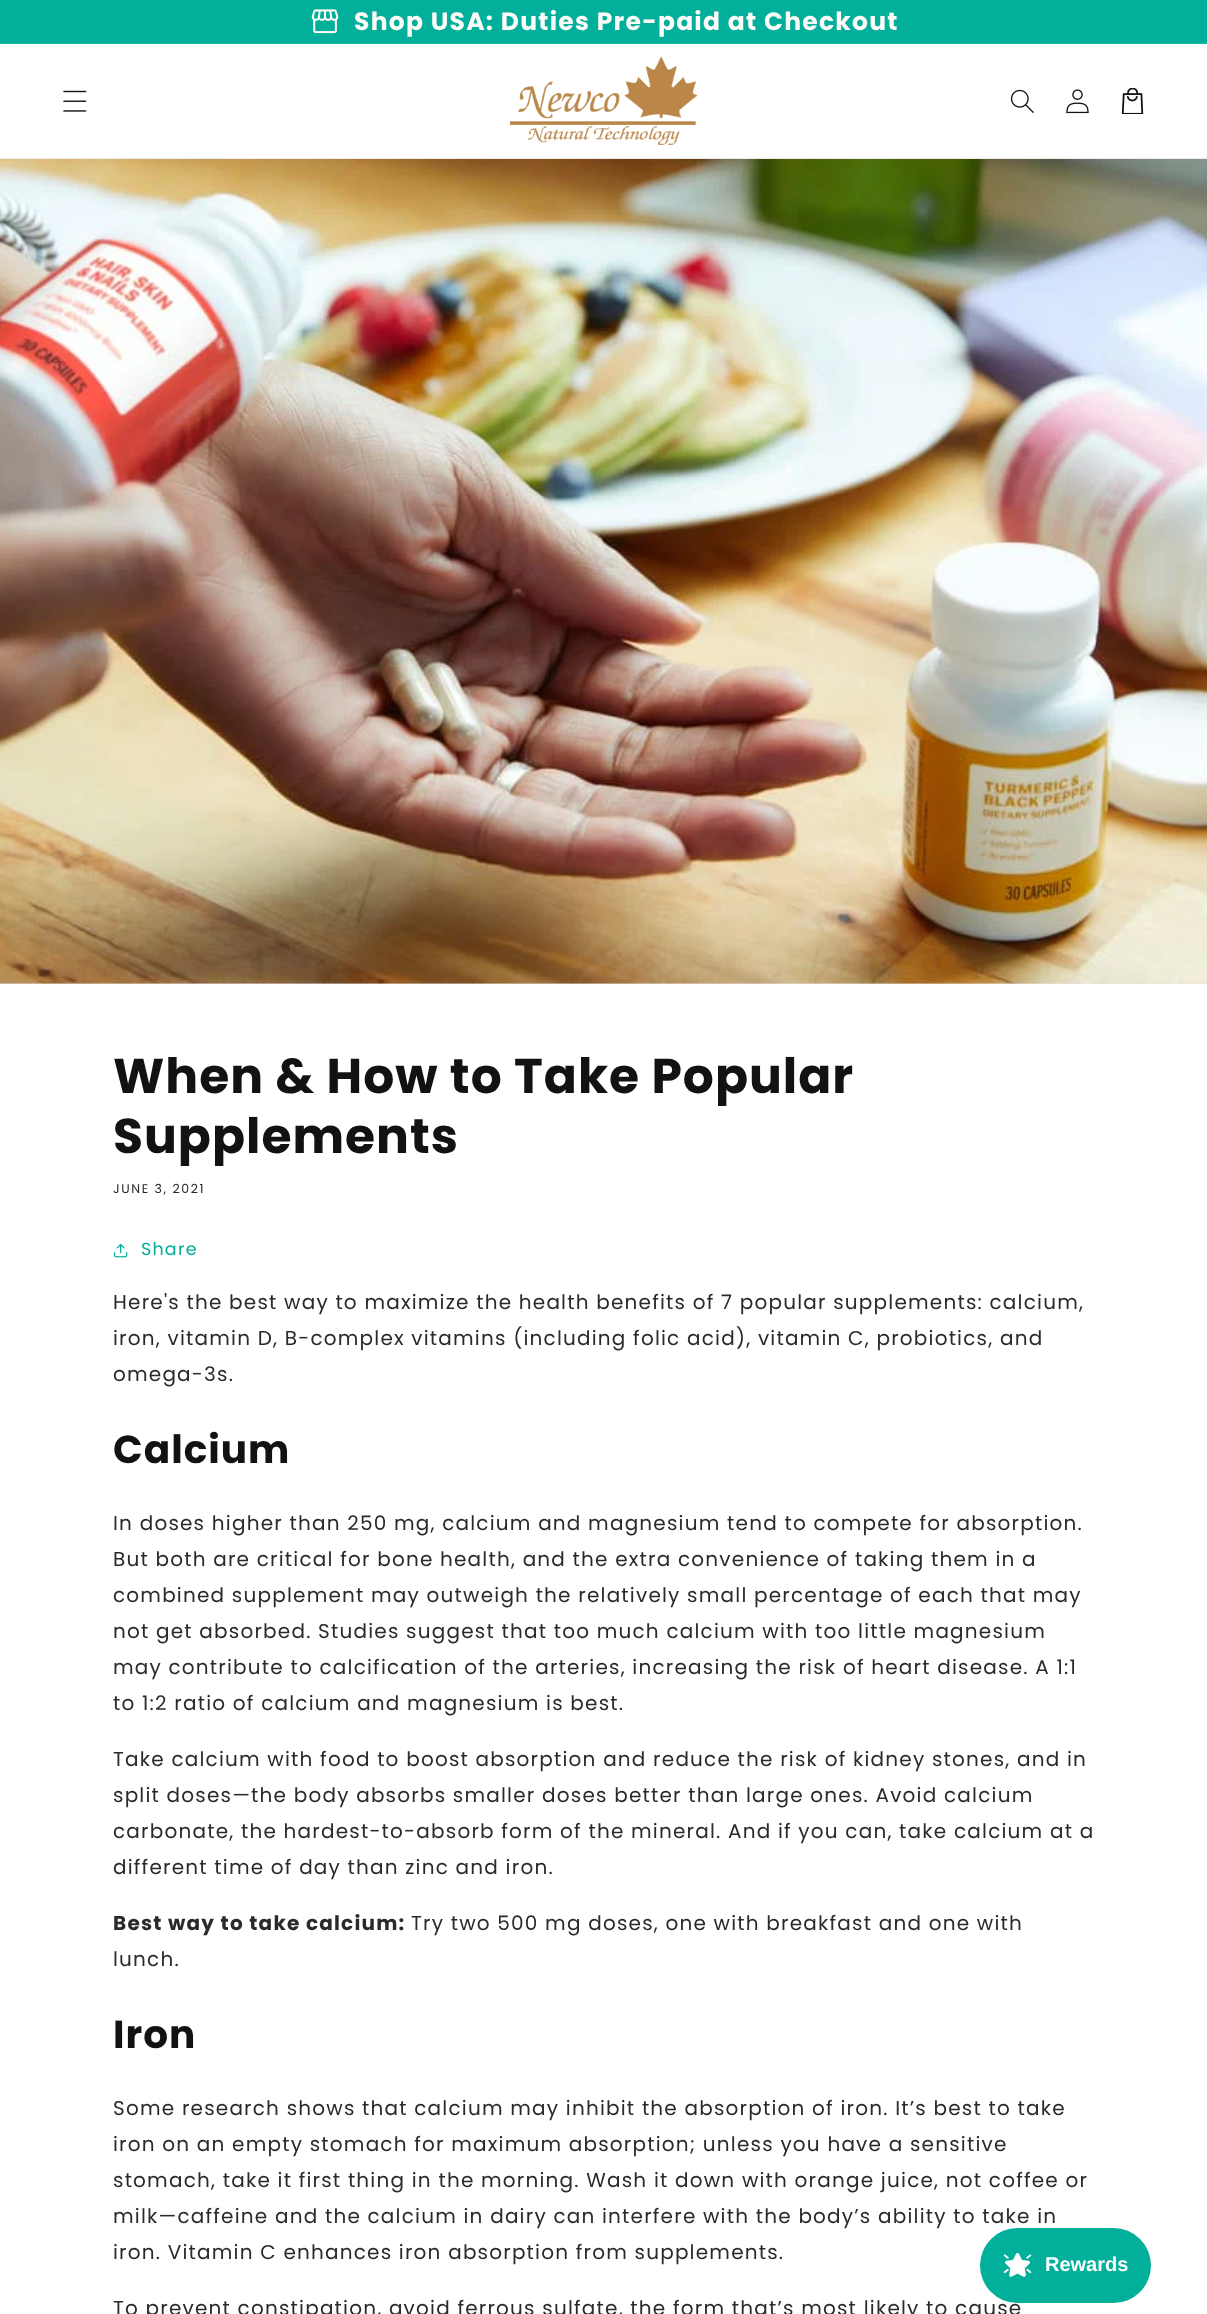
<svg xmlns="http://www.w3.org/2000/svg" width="1207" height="2314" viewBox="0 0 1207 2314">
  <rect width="100%" height="100%" fill="#fff"/>
  <path d="M0 0h1207v43H0z" fill="#02af9a"/>
  <path d="M0 43h1207v1H0z" fill="#16b5a1"/>
  <image x="311" y="9" width="28" height="25" href="img/1.png"/>
  <path d="M0 158h1207v1H0z" fill="#ececec"/>
  <image x="63" y="90" width="24" height="22" href="img/2.png"/>
  <image x="510" y="56" width="188" height="89" href="img/3.png"/>
  <image x="1010" y="89" width="24" height="24" href="img/4.png"/>
  <image x="1066" y="89" width="23" height="25" href="img/5.png"/>
  <image x="1121" y="88" width="23" height="26" href="img/6.png"/>
  <path d="M0 983h1207v1H0z" fill="#e8e8e8"/>
  <image x="0" y="159" width="1207" height="825" href="img/7.png"/>
  <image x="113" y="1243" width="15" height="15" href="img/8.png"/>
  <text x="354" y="30" font-family="Poppins" font-size="25" font-weight="bold" letter-spacing="1.25" fill="#fdfbf7">Shop USA: Duties Pre-paid at Checkout</text>
  <g font-family="Poppins" font-size="48.75" font-weight="bold" letter-spacing="1" fill="#121212">
    <text x="113" y="1093">When &amp; How to Take Popular</text>
    <text x="113" y="1153">Supplements</text>
  </g>
  <text x="113" y="1193" font-family="Poppins" font-size="12.5" letter-spacing="1.6" fill="#2a2a2a">JUNE 3, 2021</text>
  <text x="141" y="1255" font-family="Poppins" font-size="17.5" letter-spacing="1.2" fill="#02af9a">Share</text>
  <g font-family="Poppins" font-size="20" letter-spacing="1.2" fill="#2a2a2a">
    <text x="113" y="1309">Here's the best way to maximize the health benefits of 7 popular supplements: calcium,</text>
    <text x="113" y="1345">iron, vitamin D, B-complex vitamins (including folic acid), vitamin C, probiotics, and</text>
    <text x="113" y="1381">omega-3s.</text>
  </g>
  <text x="113" y="1463" font-family="Poppins" font-size="39" font-weight="bold" letter-spacing="1" fill="#121212">Calcium</text>
  <g font-family="Poppins" font-size="20" letter-spacing="1.2" fill="#2a2a2a">
    <text x="113" y="1530">In doses higher than 250 mg, calcium and magnesium tend to compete for absorption.</text>
    <text x="113" y="1566">But both are critical for bone health, and the extra convenience of taking them in a</text>
    <text x="113" y="1602">combined supplement may outweigh the relatively small percentage of each that may</text>
    <text x="113" y="1638">not get absorbed. Studies suggest that too much calcium with too little magnesium</text>
    <text x="113" y="1674">may contribute to calcification of the arteries, increasing the risk of heart disease. A 1:1</text>
    <text x="113" y="1710">to 1:2 ratio of calcium and magnesium is best.</text>
    <text x="113" y="1766">Take calcium with food to boost absorption and reduce the risk of kidney stones, and in</text>
    <text x="113" y="1802">split doses—the body absorbs smaller doses better than large ones. Avoid calcium</text>
    <text x="113" y="1838">carbonate, the hardest-to-absorb form of the mineral. And if you can, take calcium at a</text>
    <text x="113" y="1874">different time of day than zinc and iron.</text>
  </g>
  <text x="113" y="1930" font-family="Poppins" font-size="20" font-weight="bold" letter-spacing="1.2" fill="#2a2a2a">Best way to take calcium:</text>
  <g font-family="Poppins" font-size="20" letter-spacing="1.2" fill="#2a2a2a">
    <text x="411" y="1930">Try two 500 mg doses, one with breakfast and one with</text>
    <text x="113" y="1966">lunch.</text>
  </g>
  <text x="113" y="2048" font-family="Poppins" font-size="39" font-weight="bold" letter-spacing="1" fill="#121212">Iron</text>
  <g font-family="Poppins" font-size="20" letter-spacing="1.2" fill="#2a2a2a">
    <text x="113" y="2115">Some research shows that calcium may inhibit the absorption of iron. It’s best to take</text>
    <text x="113" y="2151">iron on an empty stomach for maximum absorption; unless you have a sensitive</text>
    <text x="113" y="2187">stomach, take it first thing in the morning. Wash it down with orange juice, not coffee or</text>
    <text x="113" y="2223">milk—caffeine and the calcium in dairy can interfere with the body’s ability to take in</text>
    <text x="113" y="2259">iron. Vitamin C enhances iron absorption from supplements.</text>
    <text x="113" y="2315">To prevent constipation, avoid ferrous sulfate, the form that’s most likely to cause</text>
  </g>
  <rect x="980" y="2228" width="171" height="75" rx="37.5" fill="#02af9a"/>
  <image x="1003" y="2253" width="29" height="24" href="img/9.png"/>
  <text x="1045" y="2271" font-family="Liberation Sans" font-size="20" font-weight="bold" fill="#fff">Rewards</text>
</svg>
